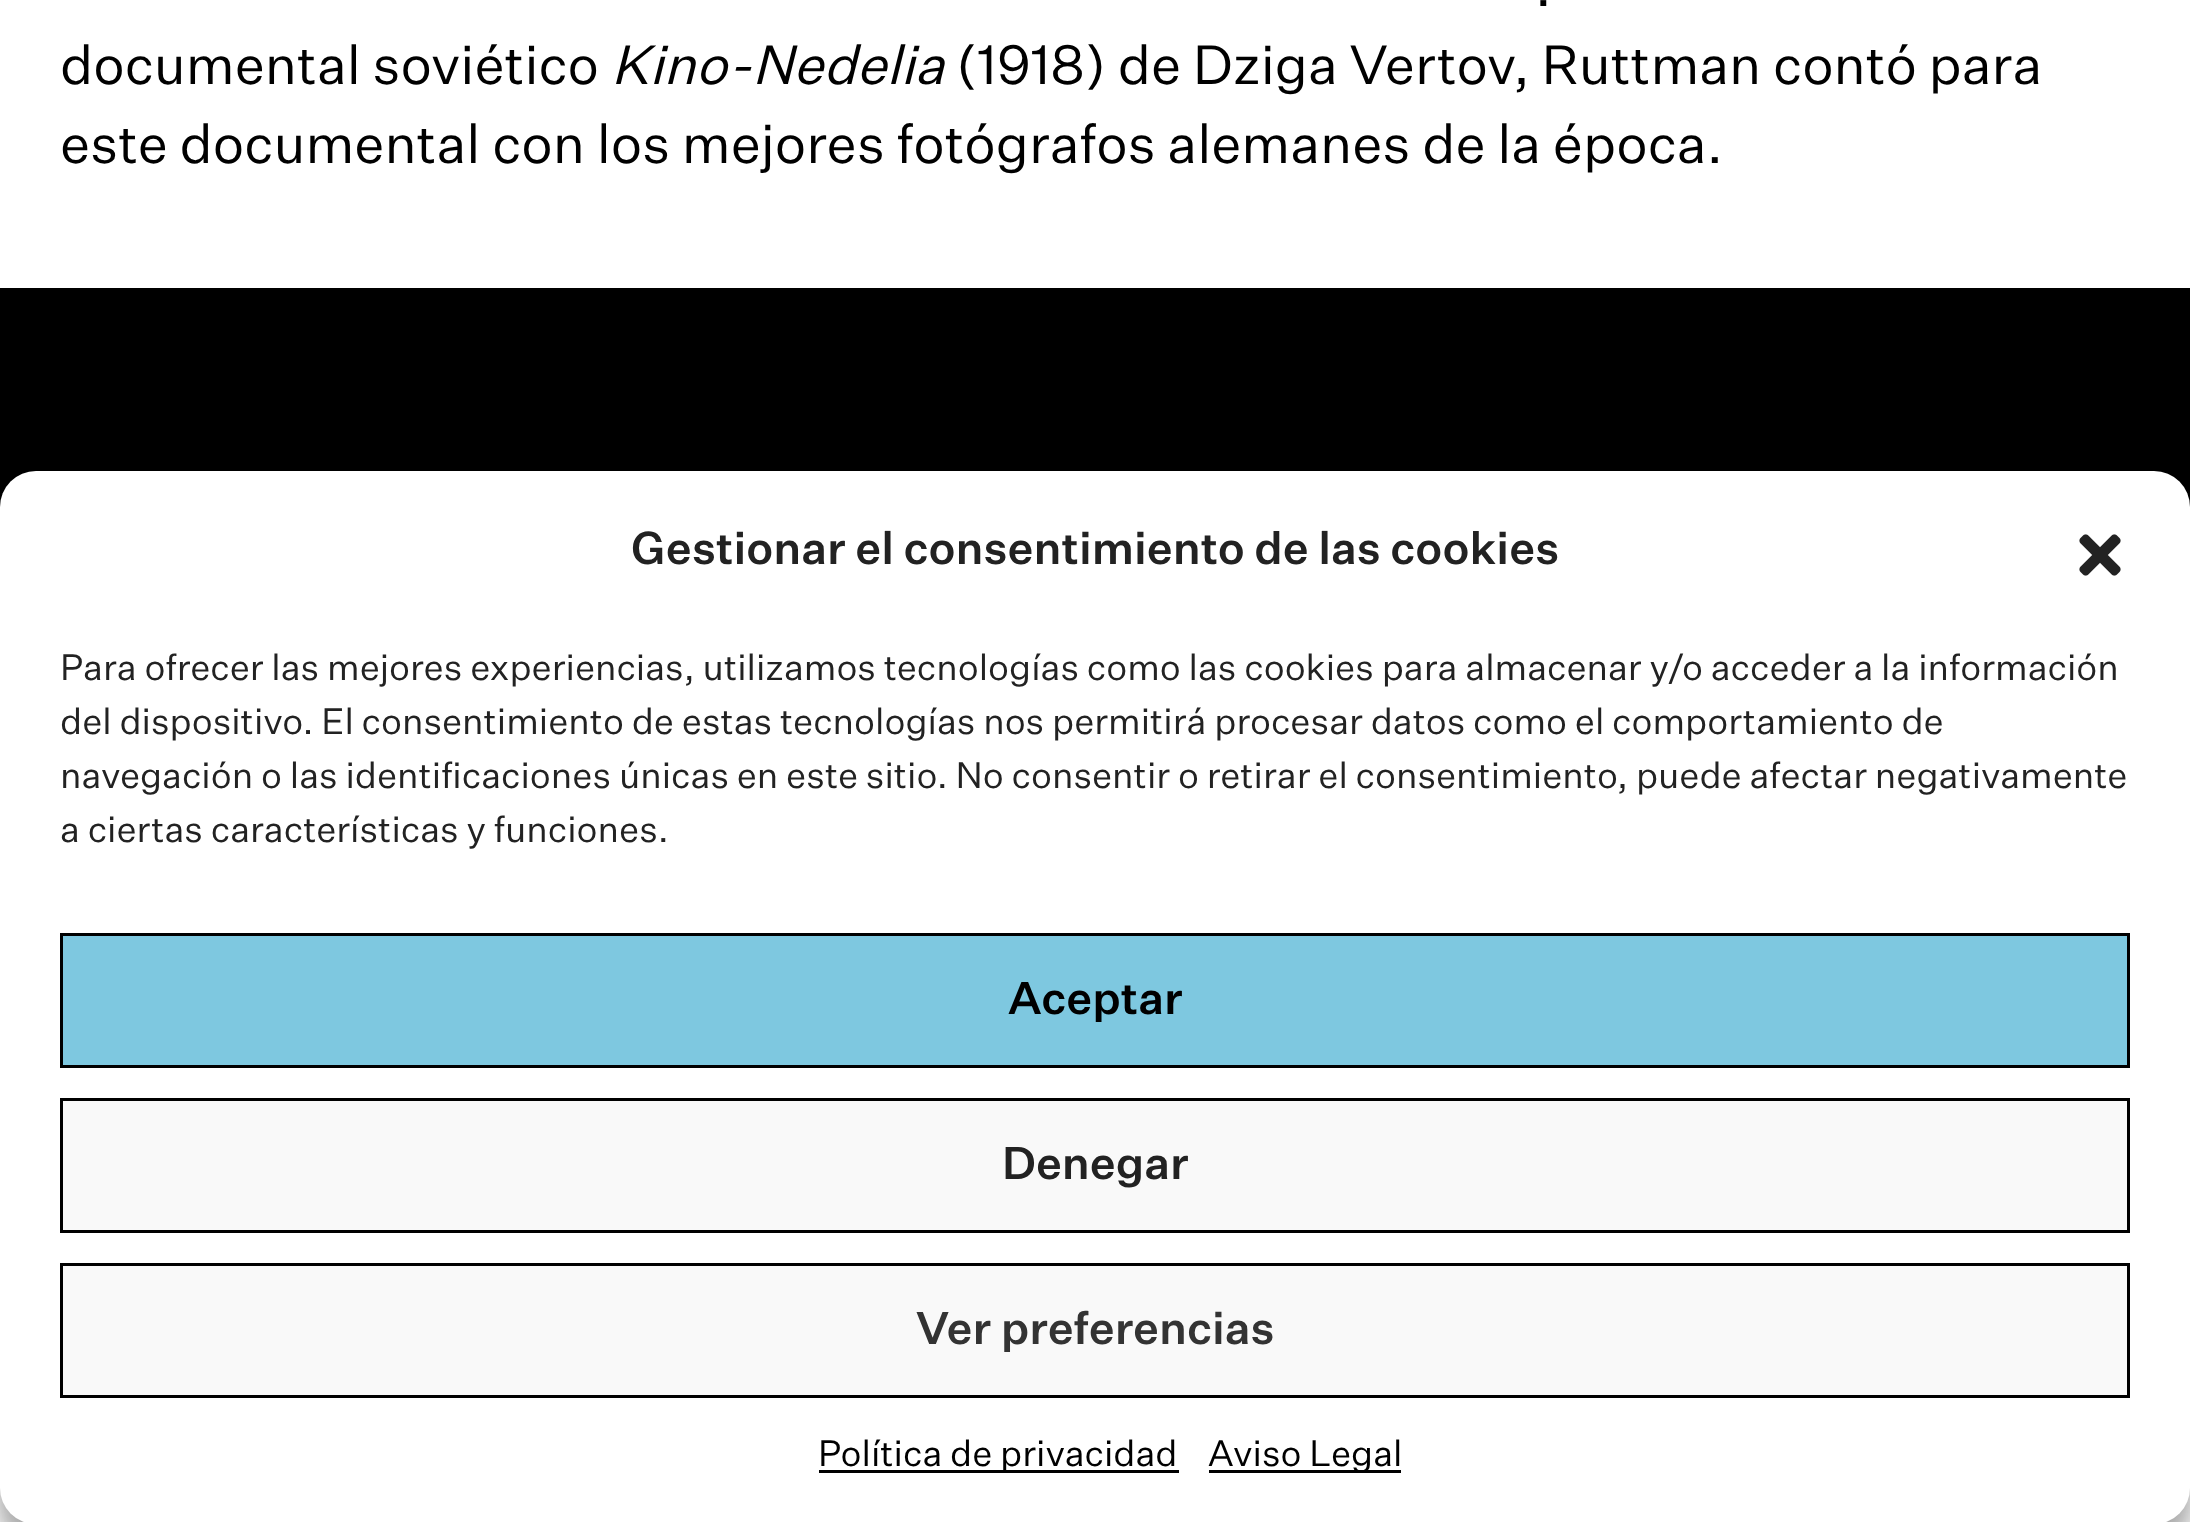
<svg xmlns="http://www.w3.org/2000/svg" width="2190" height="1522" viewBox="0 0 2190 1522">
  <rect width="100%" height="100%" fill="#fff"/>
  <path d="M0 288h2190v219H0z" fill="#000"/>
  <rect y="489" width="2190" height="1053" rx="36" fill="#0000003b" filter="blur(9px)"/>
  <rect y="501" width="2190" height="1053" rx="36" fill="#00000030" filter="blur(30px)"/>
  <rect y="471" width="2190" height="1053" rx="36" fill="#fff"/>
  <image x="2079" y="534" width="42" height="42" href="img/1.png"/>
  <path d="M61.5 934.5h2067v132H61.5z" fill="#7ec8e0" stroke="#000" stroke-width="3"/>
  <path d="M61.5 1099.5h2067v132H61.5z" fill="#f9f9f9" stroke="#000" stroke-width="3"/>
  <path d="M61.5 1264.5h2067v132H61.5z" fill="#f9f9f9" stroke="#000" stroke-width="3"/>
  <path d="M819 1470h360v3H819z" fill="#000"/>
  <path d="M1209 1470h192v3H1209z" fill="#000"/>
  <g font-family="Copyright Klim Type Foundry" font-size="54" fill="#000">
    <text x="1535" y="6">.</text>
    <text x="60" y="84">documental soviético</text>
  </g>
  <text x="611" y="84" font-family="Copyright Klim Type Foundry" font-size="54" font-style="italic" fill="#000">Kino-Nedelia</text>
  <g font-family="Copyright Klim Type Foundry" font-size="54" fill="#000">
    <text x="956" y="84">(1918) de Dziga Vertov, Ruttman contó para</text>
    <text x="60" y="163">este documental con los mejores fotógrafos alemanes de la época.</text>
  </g>
  <text x="631" y="564" font-family="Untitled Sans" font-size="45" font-weight="500" fill="#222">Gestionar el consentimiento de las cookies</text>
  <g font-family="Copyright Klim Type Foundry" font-size="36" fill="#222">
    <text x="60" y="680">Para ofrecer las mejores experiencias, utilizamos tecnologías como las cookies para almacenar y/o acceder a la información</text>
    <text x="60" y="734">del dispositivo. El consentimiento de estas tecnologías nos permitirá procesar datos como el comportamiento de</text>
    <text x="60" y="788">navegación o las identificaciones únicas en este sitio. No consentir o retirar el consentimiento, puede afectar negativamente</text>
    <text x="60" y="842">a ciertas características y funciones.</text>
  </g>
  <text x="1008" y="1014" font-family="Untitled Sans" font-size="45" font-weight="500" fill="#000">Aceptar</text>
  <text x="1002" y="1179" font-family="Untitled Sans" font-size="45" font-weight="500" fill="#222">Denegar</text>
  <text x="916" y="1344" font-family="Untitled Sans" font-size="45" font-weight="500" fill="#333">Ver preferencias</text>
  <g font-family="Copyright Klim Type Foundry" font-size="36" fill="#000">
    <text x="818" y="1466">Política de privacidad</text>
    <text x="1208" y="1466">Aviso Legal</text>
  </g>
</svg>
